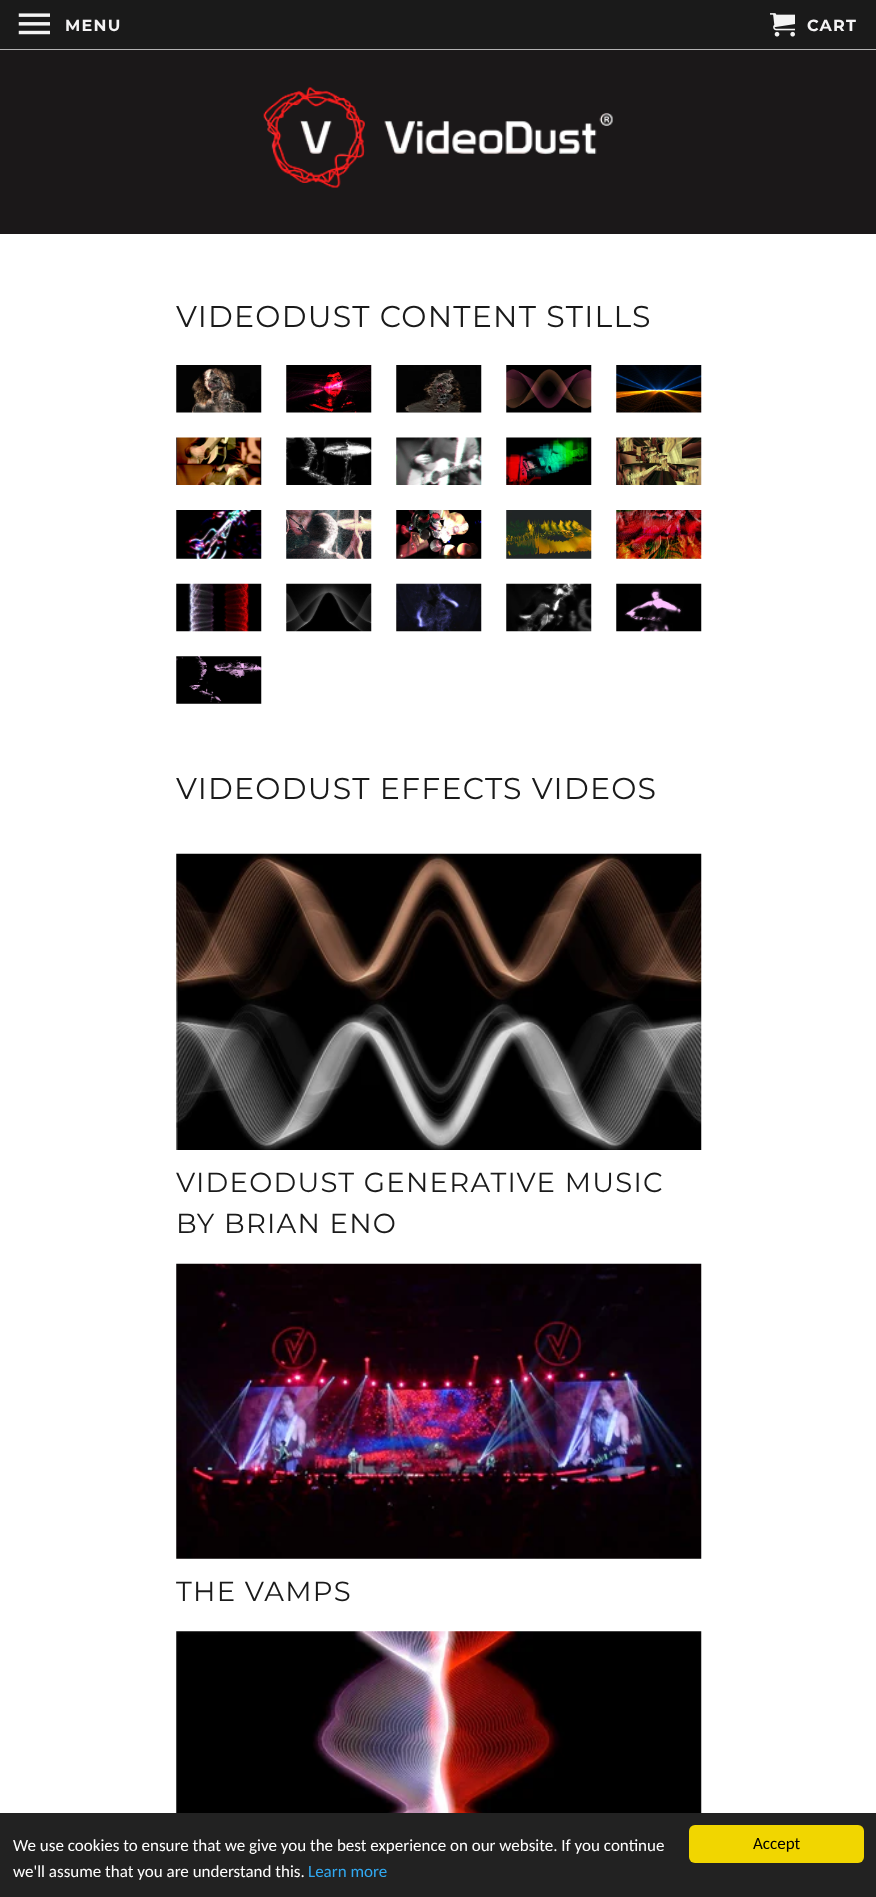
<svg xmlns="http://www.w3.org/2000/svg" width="876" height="1897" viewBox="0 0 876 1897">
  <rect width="100%" height="100%" fill="#fff"/>
  <path d="M0 0h876v49H0z" fill="#1a1a1a"/>
  <path d="M0 49h876v1H0z" fill="#b3b3b3"/>
  <image x="18" y="13" width="32" height="22" href="img/1.png"/>
  <image x="770" y="13" width="25" height="24" href="img/2.png"/>
  <path d="M0 50h876v184H0z" fill="#1b1819"/>
  <image x="263" y="87" width="350" height="101" href="img/3.png"/>
  <image x="176" y="365" width="86" height="48" href="img/4.png"/>
  <image x="286" y="365" width="86" height="48" href="img/5.png"/>
  <image x="396" y="365" width="86" height="48" href="img/6.png"/>
  <image x="506" y="365" width="86" height="48" href="img/7.png"/>
  <image x="616" y="365" width="86" height="48" href="img/8.png"/>
  <image x="176" y="437" width="86" height="48" href="img/9.png"/>
  <image x="286" y="437" width="86" height="48" href="img/10.png"/>
  <image x="396" y="437" width="86" height="48" href="img/11.png"/>
  <image x="506" y="437" width="86" height="48" href="img/12.png"/>
  <image x="616" y="437" width="86" height="48" href="img/13.png"/>
  <image x="176" y="510" width="86" height="49" href="img/14.png"/>
  <image x="286" y="510" width="86" height="49" href="img/15.png"/>
  <image x="396" y="510" width="86" height="49" href="img/16.png"/>
  <image x="506" y="510" width="86" height="49" href="img/17.png"/>
  <image x="616" y="510" width="86" height="49" href="img/18.png"/>
  <image x="176" y="583" width="86" height="49" href="img/19.png"/>
  <image x="286" y="583" width="86" height="49" href="img/20.png"/>
  <image x="396" y="583" width="86" height="49" href="img/21.png"/>
  <image x="506" y="583" width="86" height="49" href="img/22.png"/>
  <image x="616" y="583" width="86" height="49" href="img/23.png"/>
  <image x="176" y="656" width="86" height="48" href="img/24.png"/>
  <image x="176" y="853" width="526" height="297" href="img/25.png"/>
  <image x="176" y="1263" width="526" height="296" href="img/26.png"/>
  <image x="176" y="1631" width="526" height="182" href="img/27.png"/>
  <path d="M0 1813h876v84H0z" fill="#222"/>
  <rect x="689" y="1825" width="175" height="38" rx="6" fill="#f1d600"/>
  <g font-family="Montserrat" font-size="16" font-weight="bold" letter-spacing="1.25" fill="#f4f3f4">
    <text x="65" y="31">MENU</text>
    <text x="807" y="31">CART</text>
  </g>
  <g font-family="Montserrat" font-size="30" letter-spacing="1.25" fill="#1a1a1a">
    <text x="176" y="327">VIDEODUST CONTENT STILLS</text>
    <text x="176" y="799">VIDEODUST EFFECTS VIDEOS</text>
  </g>
  <g font-family="Montserrat" font-size="27.5" letter-spacing="1.25" fill="#1a1a1a">
    <text x="176" y="1192">VIDEODUST GENERATIVE MUSIC</text>
    <text x="176" y="1233">BY BRIAN ENO</text>
    <text x="176" y="1601">THE VAMPS</text>
  </g>
  <g font-family="Carlito" font-size="17" fill="#fff">
    <text x="13" y="1851">We use cookies to ensure that we give you the best experience on our website. If you continue</text>
    <text x="13" y="1877">we'll assume that you are understand this.</text>
  </g>
  <text x="308" y="1877" font-family="Carlito" font-size="17" fill="#31a8f0">Learn more</text>
  <text x="753" y="1849" font-family="Carlito" font-size="17" fill="#000">Accept</text>
</svg>
